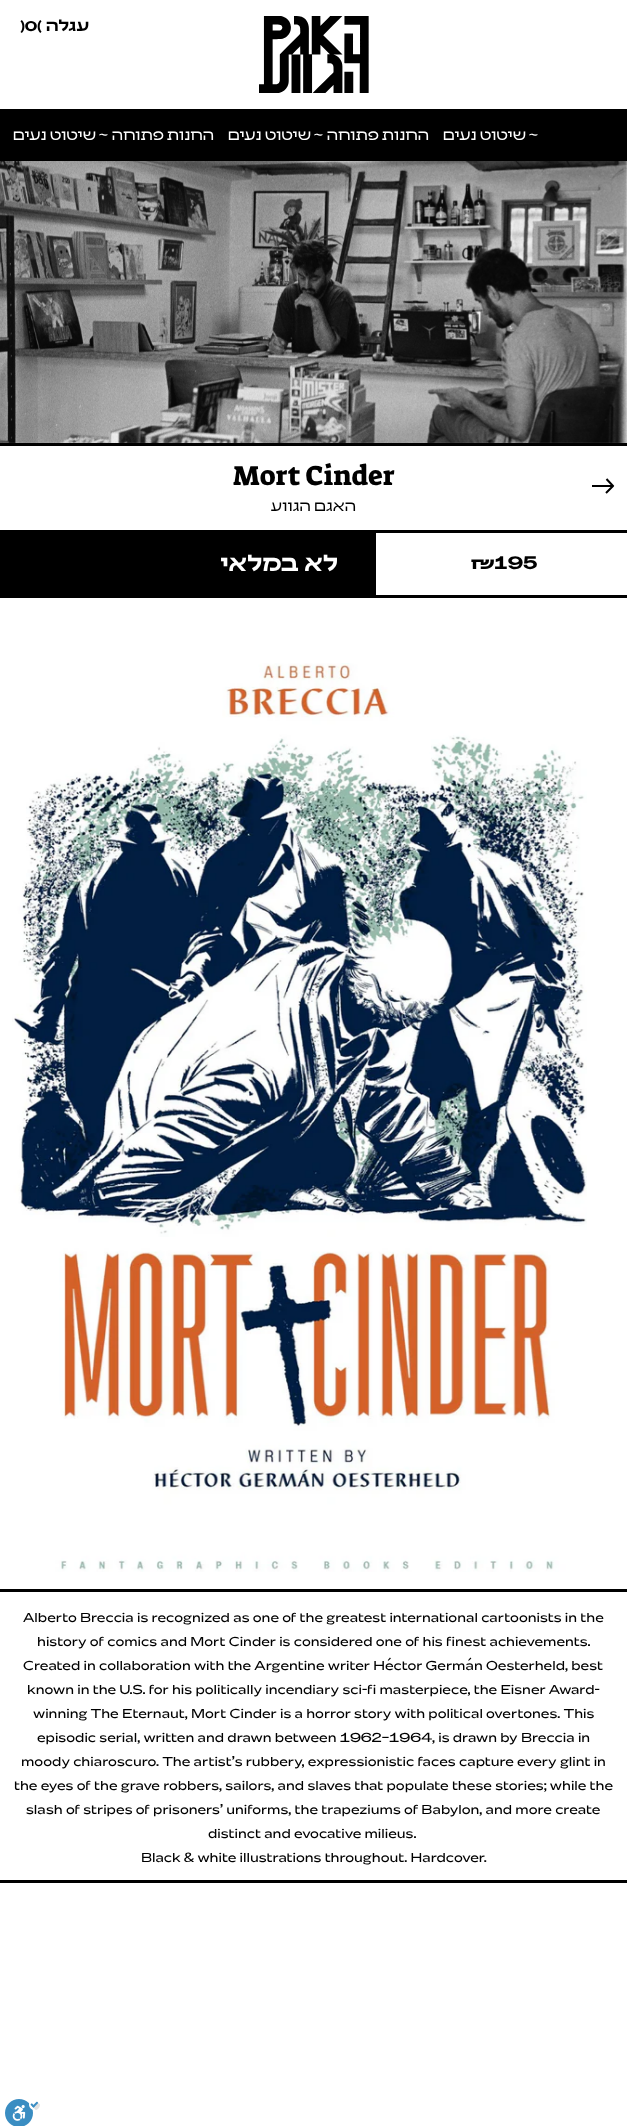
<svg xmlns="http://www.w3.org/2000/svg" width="627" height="2126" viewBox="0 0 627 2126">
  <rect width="100%" height="100%" fill="#fff"/>
  <image x="259" y="16" width="110" height="77" href="img/1.png"/>
  <path d="M0 443h627v3H0z" fill="#000"/>
  <path d="M0 109h627v52H0z" fill="#000"/>
  <image x="0" y="161" width="627" height="282" href="img/2.png"/>
  <path d="M0 1880h627v3H0z" fill="#000"/>
  <path d="M592 485h21v2H592z" fill="#000"/>
  <path d="M606.5 479L613.5 486.5M606 493L613.5 485.5" fill="none" stroke="#000" stroke-width="2"/>
  <path d="M0 530h627v3H0z" fill="#000"/>
  <path d="M0 595h627v3H0z" fill="#000"/>
  <path d="M0 533h376v62H0z" fill="#000"/>
  <image x="12" y="663" width="575" height="909" href="img/3.png"/>
  <path d="M0 1589h627v3H0z" fill="#000"/>
  <image x="5" y="2099" width="35" height="27" href="img/4.png"/>
  <text x="20" y="31" font-family="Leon" font-size="17" font-weight="bold" fill="#000">)0(</text>
  <text x="89" y="31" font-family="Leon" font-size="17" font-weight="bold" direction="rtl" fill="#000">עגלה</text>
  <text x="96" y="140" font-family="Leon" font-size="16" direction="rtl" fill="#fff">שיטוט נעים</text>
  <text x="108" y="140" font-family="Liberation Sans" font-size="16" direction="rtl" fill="#fff">~</text>
  <g font-family="Leon" font-size="16" direction="rtl" fill="#fff">
    <text x="214" y="140">החנות פתוחה</text>
    <text x="311" y="140">שיטוט נעים</text>
  </g>
  <text x="323" y="140" font-family="Liberation Sans" font-size="16" direction="rtl" fill="#fff">~</text>
  <g font-family="Leon" font-size="16" direction="rtl" fill="#fff">
    <text x="429" y="140">החנות פתוחה</text>
    <text x="526" y="140">שיטוט נעים</text>
  </g>
  <text x="538" y="140" font-family="Liberation Sans" font-size="16" direction="rtl" fill="#fff">~</text>
  <text x="233" y="485" font-family="Suez One" font-size="28" fill="#000">Mort Cinder</text>
  <text x="356" y="511" font-family="Leon" font-size="16" direction="rtl" fill="#000">האגם הגווע</text>
  <text x="338" y="571" font-family="Leon" font-size="24" font-weight="bold" direction="rtl" fill="#fff">לא במלאי</text>
  <text x="471" y="569" font-family="Leon" font-size="22" font-weight="bold" fill="#000">₪195</text>
  <g font-family="Leon" font-size="16" fill="#000">
    <text x="23" y="1622">Alberto Breccia is recognized as one of the greatest international cartoonists in the</text>
    <text x="37" y="1646">history of comics and Mort Cinder is considered one of his finest achievements.</text>
    <text x="23" y="1670">Created in collaboration with the Argentine writer Héctor Germán Oesterheld, best</text>
    <text x="27" y="1694">known in the U.S. for his politically incendiary sci-fi masterpiece, the Eisner Award-</text>
    <text x="33" y="1718">winning The Eternaut, Mort Cinder is a horror story with political overtones. This</text>
    <text x="37" y="1742">episodic serial, written and drawn between 1962–1964, is drawn by Breccia in</text>
    <text x="21" y="1766">moody chiaroscuro. The artist’s rubbery, expressionistic faces capture every glint in</text>
    <text x="14" y="1790">the eyes of the grave robbers, sailors, and slaves that populate these stories; while the</text>
    <text x="26" y="1814">slash of stripes of prisoners’ uniforms, the trapeziums of Babylon, and more create</text>
    <text x="208" y="1838">distinct and evocative milieus.</text>
    <text x="141" y="1862">Black &amp; white illustrations throughout. Hardcover.</text>
  </g>
</svg>
